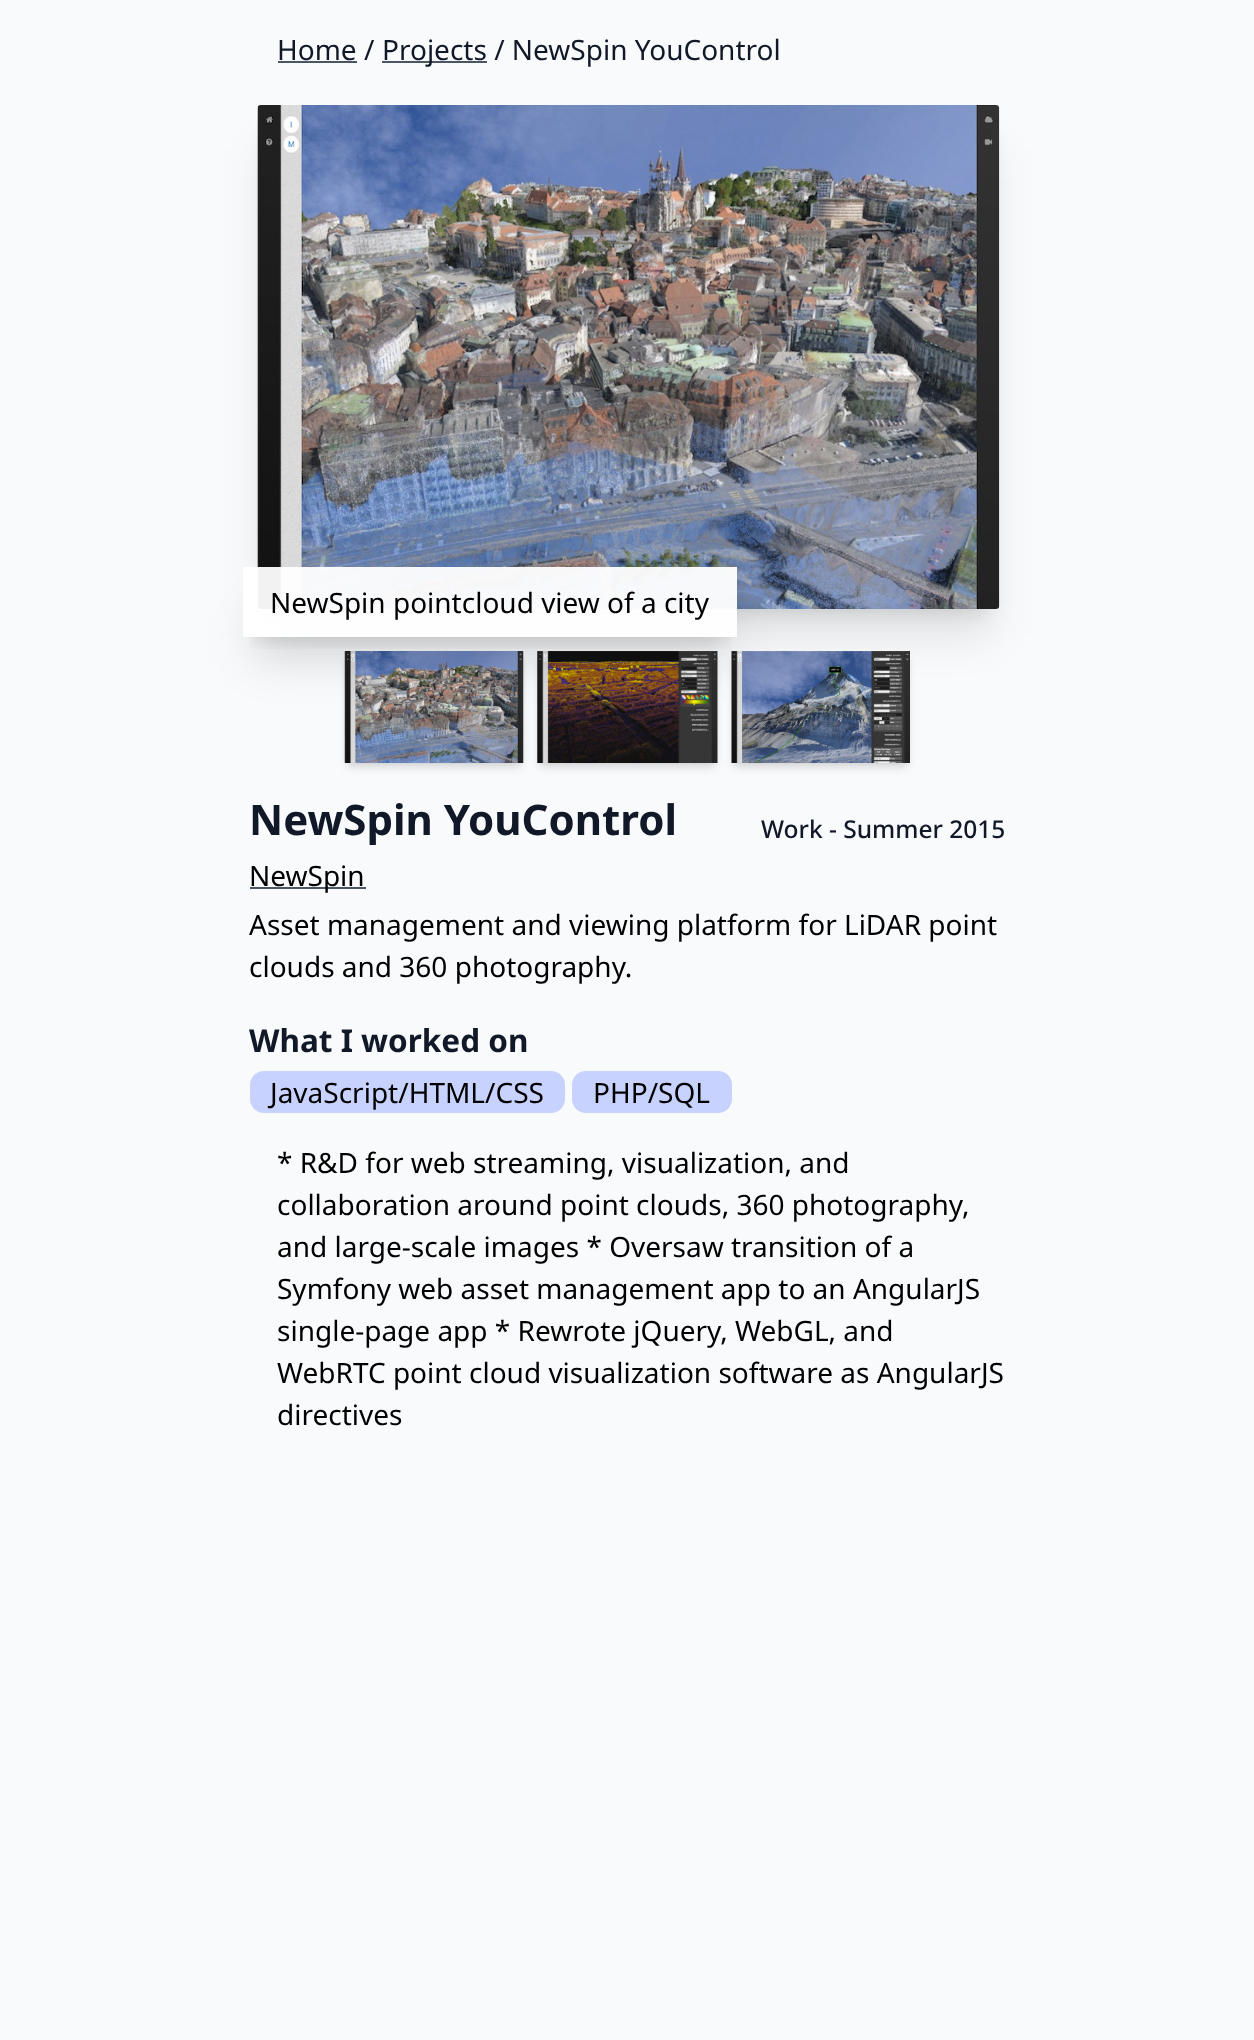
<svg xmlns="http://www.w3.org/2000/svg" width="1254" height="2040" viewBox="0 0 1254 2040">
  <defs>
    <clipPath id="clip1"><path d="M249 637h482v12H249z"/></clipPath>
    <clipPath id="clip2"><path d="M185 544H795V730H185ZM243 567H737V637H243Z" clip-rule="evenodd"/></clipPath>
  </defs>
  <rect width="100%" height="100%" fill="#f8fafc"/>
  <path d="M278 61h79v2H278z" fill="#4b5563"/>
  <path d="M382 61h105v2H382z" fill="#4b5563"/>
  <path d="M268 130h721v483H268z" fill="#0000001a" filter="blur(9px)"/>
  <path d="M348 658h172v105H348z" fill="#0000001a" filter="blur(3.5px)"/>
  <rect x="347" y="660" width="175" height="108" rx="2" fill="#0000001a" filter="blur(5px)"/>
  <image x="344" y="651" width="180" height="112" href="img/2.png"/>
  <path d="M541 658h173v105H541z" fill="#0000001a" filter="blur(3.5px)"/>
  <rect x="539" y="660" width="177" height="108" rx="2" fill="#0000001a" filter="blur(5px)"/>
  <image x="537" y="651" width="181" height="112" href="img/3.png"/>
  <path d="M735 658h172v105H735z" fill="#0000001a" filter="blur(3.5px)"/>
  <rect x="733" y="660" width="175" height="108" rx="2" fill="#0000001a" filter="blur(5px)"/>
  <image x="731" y="651" width="179" height="112" href="img/4.png"/>
  <path d="M266 149h725v486H266z" fill="#0000001a" filter="blur(22px)"/>
  <image x="257" y="105" width="743" height="504" href="img/1.png"/>
  <g clip-path="url(#clip1)">
    <path d="M254 592h472v49H254z" fill="#0000001a" filter="blur(9px)"/>
  </g>
  <g clip-path="url(#clip2)">
    <path d="M252 611h476v52H252z" fill="#0000001a" filter="blur(22px)"/>
  </g>
  <path d="M243 567h494v70H243z" fill="#fffffff2"/>
  <path d="M250 887h116v2H250z" fill="#4b5563"/>
  <rect x="250" y="1071" width="315" height="42" rx="14" fill="#c7d2fe"/>
  <rect x="572" y="1071" width="160" height="42" rx="14" fill="#c7d2fe"/>
  <g font-family="Noto Sans" font-size="28" fill="#111827">
    <text x="277" y="60">Home /</text>
    <text x="382" y="60">Projects / NewSpin YouControl</text>
  </g>
  <text x="270" y="613" font-family="Noto Sans" font-size="28" fill="#000">NewSpin pointcloud view of a city</text>
  <text x="249" y="835" font-family="Noto Sans" font-size="42" font-weight="bold" fill="#111827">NewSpin YouControl</text>
  <text x="761" y="838" font-family="Noto Sans" font-size="24.5" font-weight="500" fill="#111827">Work - Summer 2015</text>
  <g font-family="Noto Sans" font-size="28" fill="#000">
    <text x="249" y="886">NewSpin</text>
    <text x="249" y="935">Asset management and viewing platform for LiDAR point</text>
    <text x="249" y="977">clouds and 360 photography.</text>
  </g>
  <text x="249" y="1052" font-family="Noto Sans" font-size="31.5" font-weight="bold" fill="#111827">What I worked on</text>
  <g font-family="Noto Sans" font-size="28" fill="#000">
    <text x="270" y="1103">JavaScript/HTML/CSS</text>
    <text x="593" y="1103">PHP/SQL</text>
    <text x="277" y="1173">* R&amp;D for web streaming, visualization, and</text>
    <text x="277" y="1215">collaboration around point clouds, 360 photography,</text>
    <text x="277" y="1257">and large-scale images * Oversaw transition of a</text>
    <text x="277" y="1299">Symfony web asset management app to an AngularJS</text>
    <text x="277" y="1341">single-page app * Rewrote jQuery, WebGL, and</text>
    <text x="277" y="1383">WebRTC point cloud visualization software as AngularJS</text>
    <text x="277" y="1425">directives</text>
  </g>
</svg>
